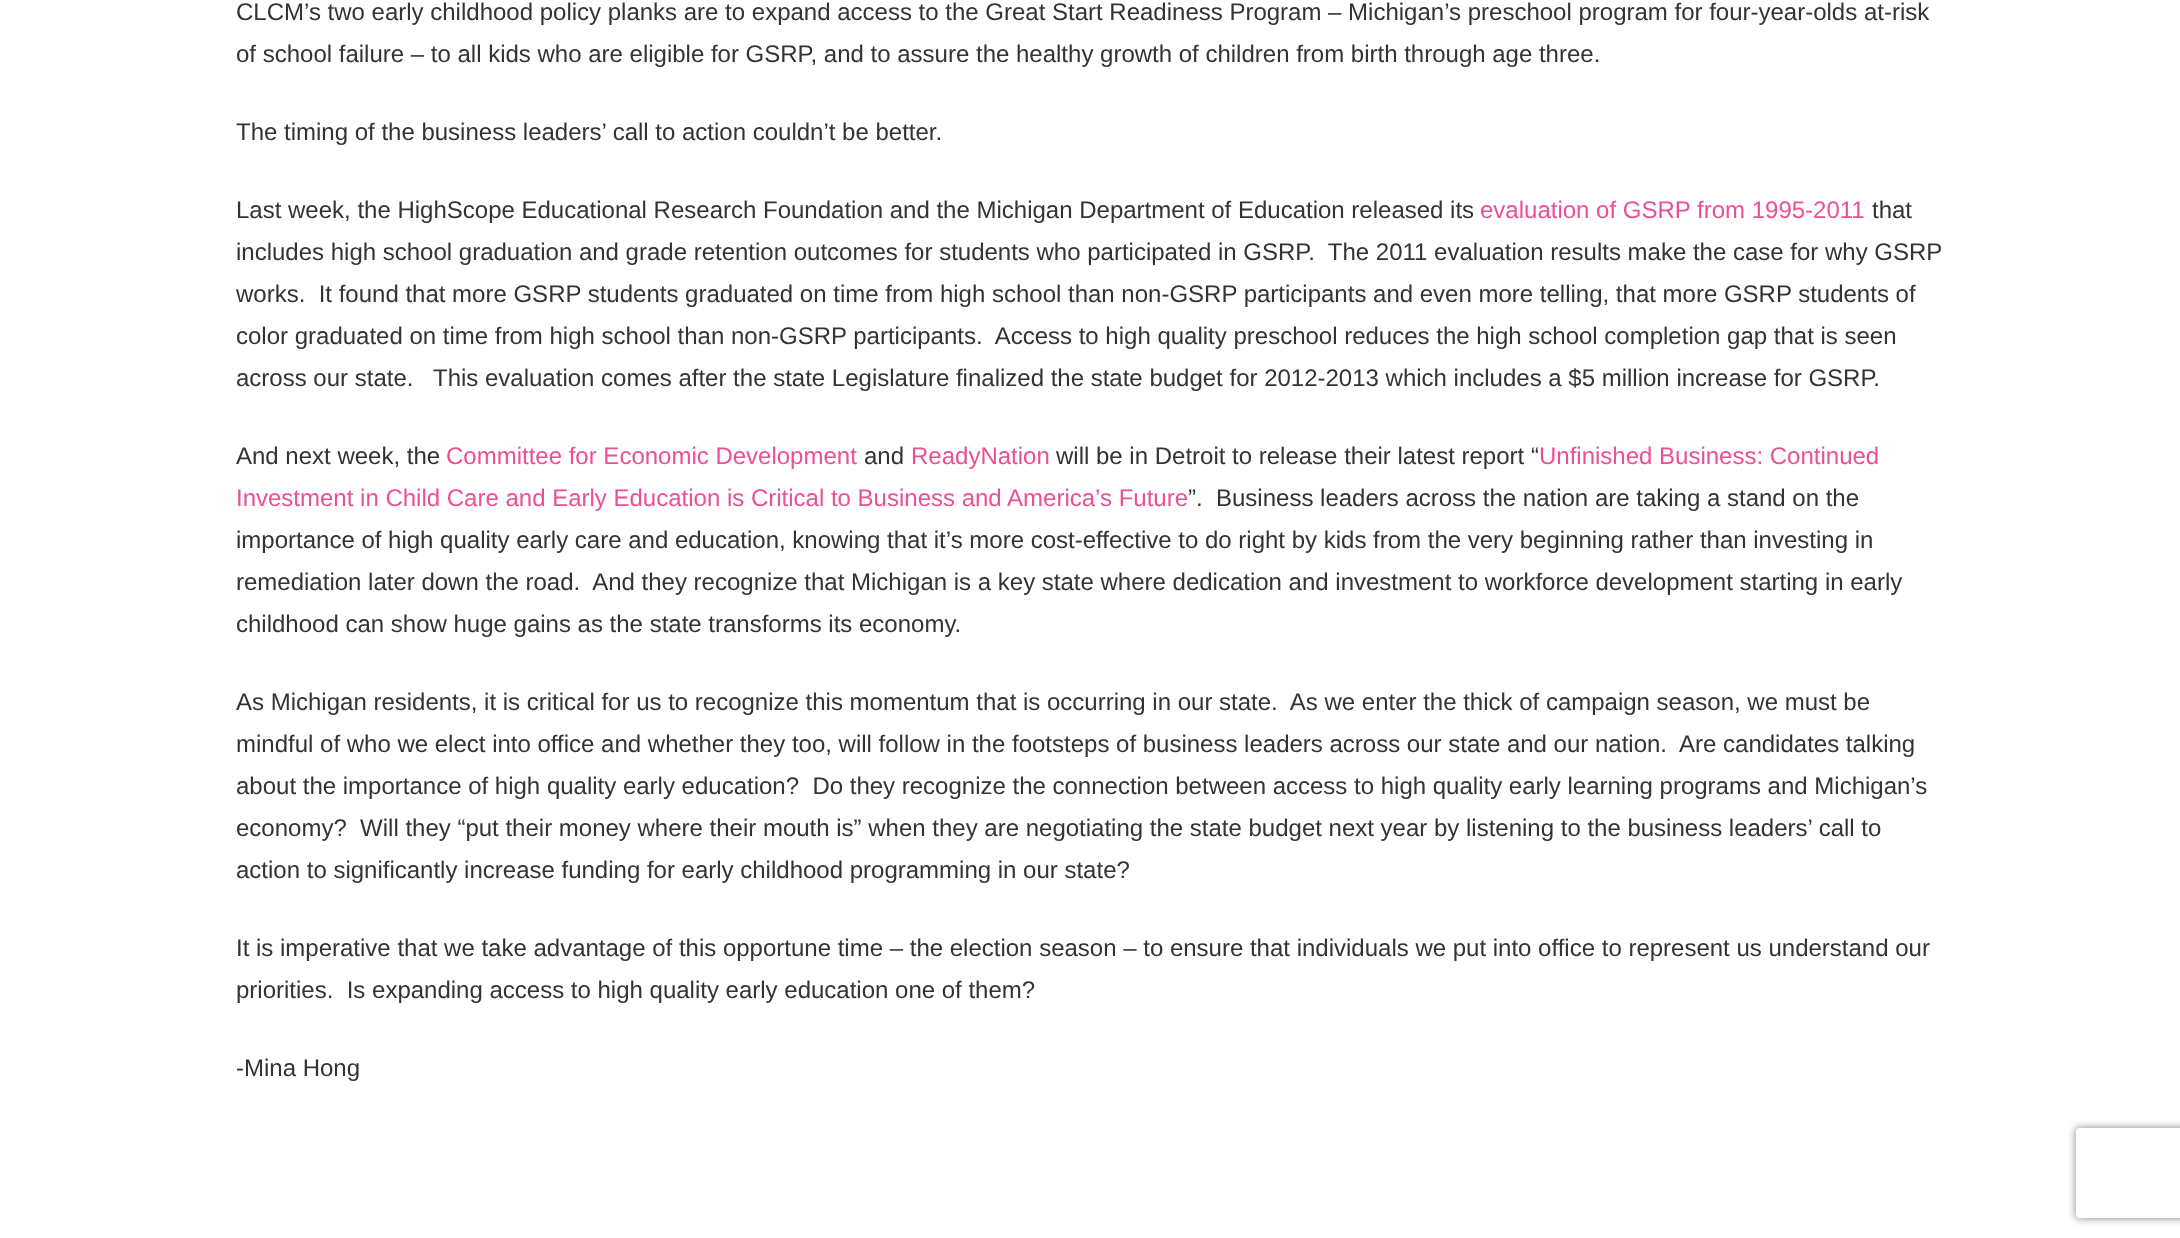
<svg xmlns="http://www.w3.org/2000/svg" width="2180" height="1238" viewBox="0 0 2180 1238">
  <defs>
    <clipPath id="clip1"><path d="M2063 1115H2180V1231H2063ZM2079 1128H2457C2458.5 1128 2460 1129.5 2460 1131V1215C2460 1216.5 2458.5 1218 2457 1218H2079C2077.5 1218 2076 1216.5 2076 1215V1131C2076 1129.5 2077.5 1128 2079 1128Z" clip-rule="evenodd"/></clipPath>
  </defs>
  <rect width="100%" height="100%" fill="#fff"/>
  <g clip-path="url(#clip1)">
    <rect x="2076" y="1128" width="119" height="90" rx="3" fill="#808080" filter="blur(4px)"/>
  </g>
  <g font-family="Liberation Sans" font-size="24" fill="#333">
    <text x="236" y="20">CLCM’s two early childhood policy planks are to expand access to the Great Start Readiness Program – Michigan’s preschool program for four-year-olds at-risk</text>
    <text x="236" y="62">of school failure – to all kids who are eligible for GSRP, and to assure the healthy growth of children from birth through age three.</text>
    <text x="236" y="140">The timing of the business leaders’ call to action couldn’t be better.</text>
    <text x="236" y="218">Last week, the HighScope Educational Research Foundation and the Michigan Department of Education released its</text>
  </g>
  <text x="1480" y="218" font-family="Liberation Sans" font-size="24" fill="#e95095">evaluation of GSRP from 1995-2011</text>
  <g font-family="Liberation Sans" font-size="24" fill="#333">
    <text x="1872" y="218">that</text>
    <text x="236" y="260" xml:space="preserve">includes high school graduation and grade retention outcomes for students who participated in GSRP.  The 2011 evaluation results make the case for why GSRP</text>
    <text x="236" y="302" xml:space="preserve">works.  It found that more GSRP students graduated on time from high school than non-GSRP participants and even more telling, that more GSRP students of</text>
    <text x="236" y="344" xml:space="preserve">color graduated on time from high school than non-GSRP participants.  Access to high quality preschool reduces the high school completion gap that is seen</text>
    <text x="236" y="386" xml:space="preserve">across our state.   This evaluation comes after the state Legislature finalized the state budget for 2012-2013 which includes a $5 million increase for GSRP.</text>
    <text x="236" y="464">And next week, the</text>
  </g>
  <text x="446" y="464" font-family="Liberation Sans" font-size="24" fill="#e95095">Committee for Economic Development</text>
  <text x="864" y="464" font-family="Liberation Sans" font-size="24" fill="#333">and</text>
  <text x="911" y="464" font-family="Liberation Sans" font-size="24" fill="#e95095">ReadyNation</text>
  <text x="1056" y="464" font-family="Liberation Sans" font-size="24" fill="#333">will be in Detroit to release their latest report “</text>
  <g font-family="Liberation Sans" font-size="24" fill="#e95095">
    <text x="1539" y="464">Unfinished Business: Continued</text>
    <text x="236" y="506">Investment in Child Care and Early Education is Critical to Business and America’s Future</text>
  </g>
  <g font-family="Liberation Sans" font-size="24" fill="#333">
    <text x="1188" y="506" xml:space="preserve">”.  Business leaders across the nation are taking a stand on the</text>
    <text x="236" y="548">importance of high quality early care and education, knowing that it’s more cost-effective to do right by kids from the very beginning rather than investing in</text>
    <text x="236" y="590" xml:space="preserve">remediation later down the road.  And they recognize that Michigan is a key state where dedication and investment to workforce development starting in early</text>
    <text x="236" y="632">childhood can show huge gains as the state transforms its economy.</text>
    <text x="236" y="710" xml:space="preserve">As Michigan residents, it is critical for us to recognize this momentum that is occurring in our state.  As we enter the thick of campaign season, we must be</text>
    <text x="236" y="752" xml:space="preserve">mindful of who we elect into office and whether they too, will follow in the footsteps of business leaders across our state and our nation.  Are candidates talking</text>
    <text x="236" y="794" xml:space="preserve">about the importance of high quality early education?  Do they recognize the connection between access to high quality early learning programs and Michigan’s</text>
    <text x="236" y="836" xml:space="preserve">economy?  Will they “put their money where their mouth is” when they are negotiating the state budget next year by listening to the business leaders’ call to</text>
    <text x="236" y="878">action to significantly increase funding for early childhood programming in our state?</text>
    <text x="236" y="956">It is imperative that we take advantage of this opportune time – the election season – to ensure that individuals we put into office to represent us understand our</text>
    <text x="236" y="998" xml:space="preserve">priorities.  Is expanding access to high quality early education one of them?</text>
    <text x="236" y="1076">-Mina Hong</text>
  </g>
</svg>
